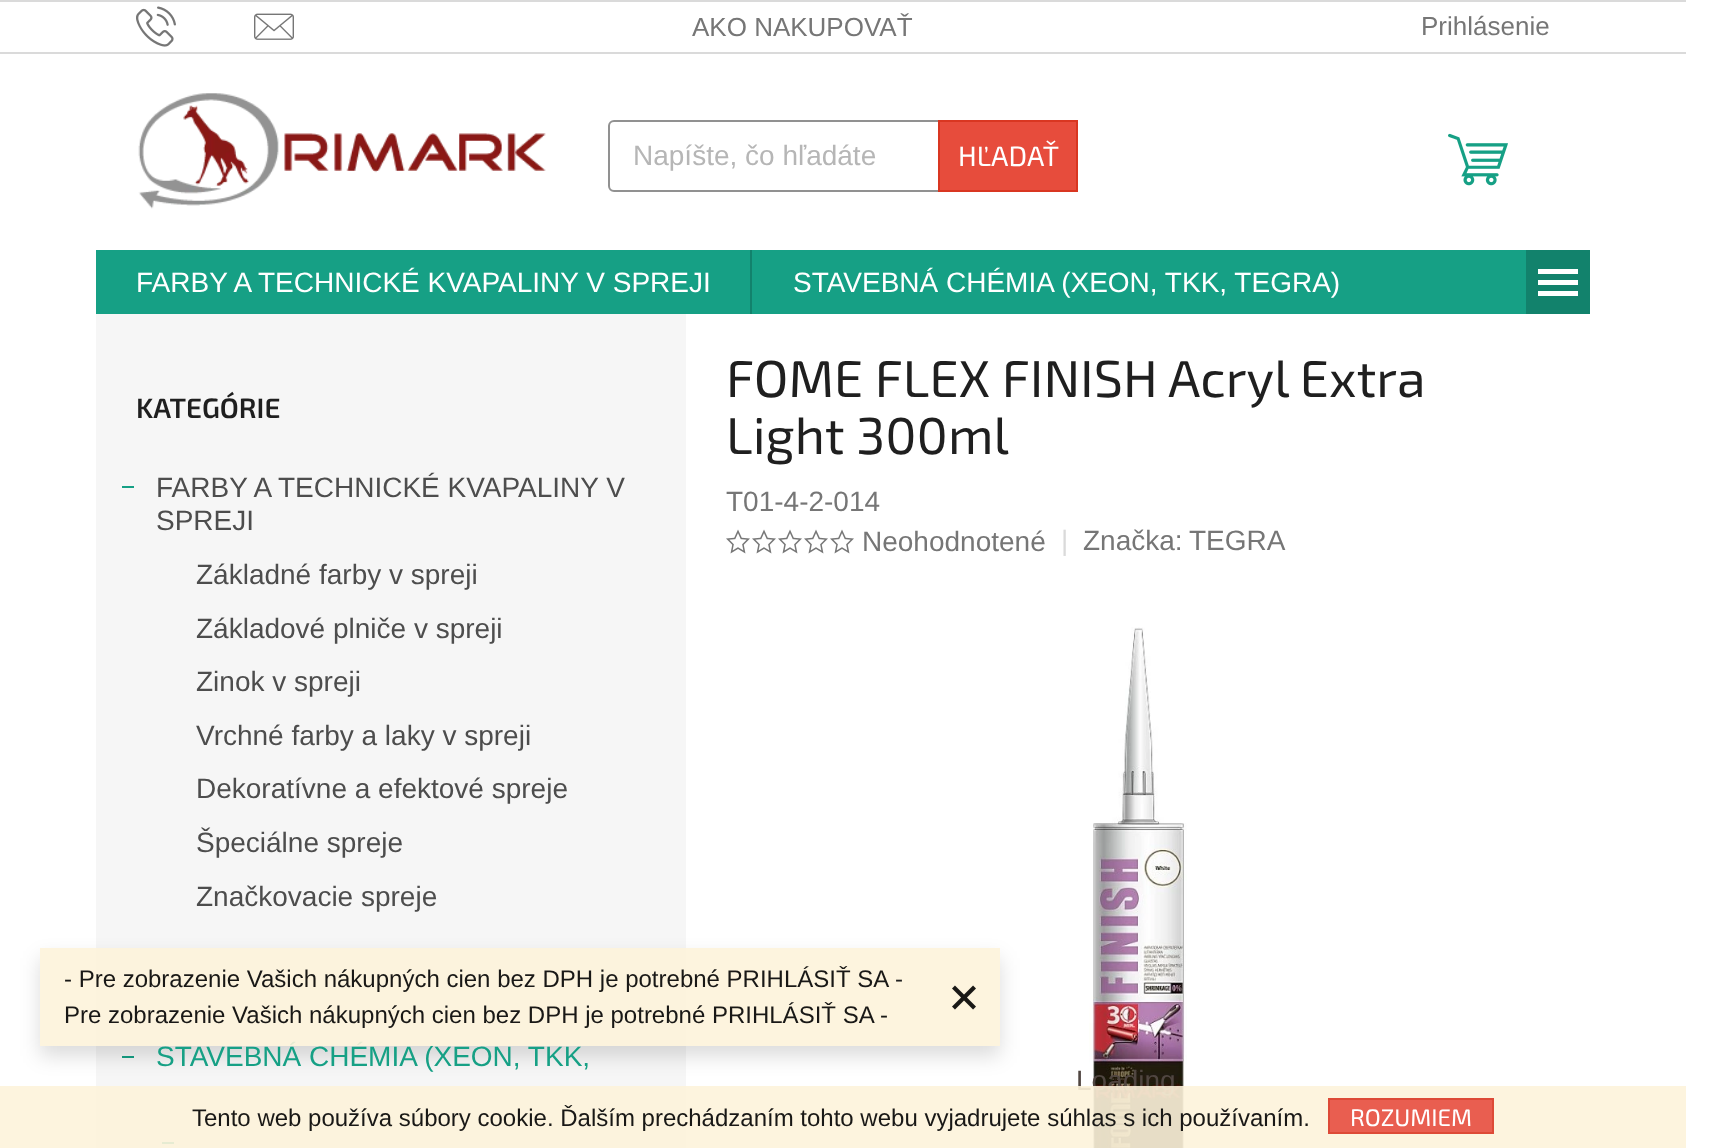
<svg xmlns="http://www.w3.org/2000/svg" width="1716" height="1148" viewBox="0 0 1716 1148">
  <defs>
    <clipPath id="clip1"><path d="M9 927H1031V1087H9ZM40 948H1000V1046H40Z" clip-rule="evenodd"/></clipPath>
  </defs>
  <rect width="100%" height="100%" fill="#fff"/>
  <path d="M0 0h1686v2H0z" fill="#dadada"/>
  <path d="M0 52h1686v2H0z" fill="#dadada"/>
  <image x="136" y="6" width="40" height="41" href="img/1.png"/>
  <image x="254" y="13" width="40" height="27" href="img/2.png"/>
  <image x="138" y="93" width="408" height="116" href="img/3.png"/>
  <rect x="609" y="121" width="468" height="70" rx="5" fill="none" stroke="#919191" stroke-width="2"/>
  <path d="M939 121h138v70H939z" fill="#e74c3c" stroke="#d93621" stroke-width="2"/>
  <image x="1448" y="133" width="60" height="53" href="img/4.png"/>
  <path d="M96 250h1430v64H96z" fill="#16a085"/>
  <path d="M750 250h2v64H750z" fill="#12826c"/>
  <path d="M1526 250h64v64H1526z" fill="#12826c"/>
  <path d="M1538 296H1578V291H1538ZM1538 285H1578V280H1538ZM1538 269V274H1578V269Z" fill="#fff"/>
  <path d="M96 314h590v834H96z" fill="#f6f6f6"/>
  <path d="M122 486h12v2H122z" fill="#16a085"/>
  <path d="M122 1056h12v2H122z" fill="#16a085"/>
  <path d="M162 1142h12v2H162z" fill="#16a085"/>
  <image x="726" y="529" width="24" height="25" href="img/5.png"/>
  <image x="752" y="529" width="24" height="25" href="img/5.png"/>
  <image x="778" y="529" width="24" height="25" href="img/5.png"/>
  <image x="804" y="529" width="24" height="25" href="img/5.png"/>
  <image x="830" y="529" width="24" height="25" href="img/5.png"/>
  <image x="1089" y="627" width="98" height="521" href="img/6.png"/>
  <g clip-path="url(#clip1)">
    <path d="M40 958h960v98H40z" fill="#00000024" filter="blur(10px)"/>
  </g>
  <g font-family="Liberation Sans" font-size="26" fill="#767676">
    <text x="692" y="36">AKO NAKUPOVAŤ</text>
    <text x="1421" y="35">Prihlásenie</text>
  </g>
  <text x="633" y="165" font-family="Liberation Sans" font-size="28" fill="#b6b6b6">Napíšte, čo hľadáte</text>
  <text x="958" y="166" font-family="'Exo 2'" font-size="28" fill="#fff">HĽADAŤ</text>
  <g font-family="Liberation Sans" font-size="28" fill="#fff">
    <text x="136" y="292">FARBY A TECHNICKÉ KVAPALINY V SPREJI</text>
    <text x="793" y="292">STAVEBNÁ CHÉMIA (XEON, TKK, TEGRA)</text>
  </g>
  <text x="136" y="418" font-family="'Exo 2'" font-size="28" font-weight="600" fill="#1f1f1f">KATEGÓRIE</text>
  <g font-family="Liberation Sans" font-size="28" fill="#4d4d4d">
    <text x="156" y="497">FARBY A TECHNICKÉ KVAPALINY V</text>
    <text x="156" y="530">SPREJI</text>
    <text x="196" y="584">Základné farby v spreji</text>
    <text x="196" y="638">Základové plniče v spreji</text>
    <text x="196" y="691">Zinok v spreji</text>
    <text x="196" y="745">Vrchné farby a laky v spreji</text>
    <text x="196" y="798">Dekoratívne a efektové spreje</text>
    <text x="196" y="852">Špeciálne spreje</text>
    <text x="196" y="906">Značkovacie spreje</text>
  </g>
  <text x="156" y="1066" font-family="Liberation Sans" font-size="28" fill="#16a085">STAVEBNÁ CHÉMIA (XEON, TKK,</text>
  <g font-family="'Exo 2'" font-size="52" fill="#1f1f1f">
    <text x="726" y="397">FOME FLEX FINISH Acryl Extra</text>
    <text x="726" y="454">Light 300ml</text>
  </g>
  <g font-family="Liberation Sans" font-size="28" fill="#767676">
    <text x="726" y="511">T01-4-2-014</text>
    <text x="862" y="551">Neohodnotené</text>
  </g>
  <text x="1061" y="550" font-family="Liberation Sans" font-size="28" fill="#dadada">|</text>
  <g font-family="Liberation Sans" font-size="28" fill="#767676">
    <text x="1083" y="550">Značka:</text>
    <text x="1189" y="550">TEGRA</text>
  </g>
  <text x="1076" y="1090" font-family="Liberation Sans" font-size="28" fill="#504641">Loading</text>
  <path d="M40 948h960v98H40z" fill="#fdf3dae6"/>
  <text x="64" y="987" font-family="Liberation Sans" font-size="24" fill="#191816">- Pre zobrazenie Vašich nákupných cien bez DPH je potrebné PRIHLÁSIŤ SA</text>
  <text x="895" y="987" font-family="Liberation Sans" font-size="24" fill="#1f1f1f">-</text>
  <text x="64" y="1023" font-family="Liberation Sans" font-size="24" fill="#191816">Pre zobrazenie Vašich nákupných cien bez DPH je potrebné PRIHLÁSIŤ SA -</text>
  <image x="952" y="985" width="24" height="25" href="img/7.png"/>
  <path d="M0 1086h1686v62H0z" fill="#fdf3dae6"/>
  <text x="192" y="1126" font-family="Liberation Sans" font-size="24" fill="#191816">Tento web používa súbory cookie. Ďalším prechádzaním tohto webu vyjadrujete súhlas s ich používaním.</text>
  <path d="M1329 1099h164v34H1329z" fill="#e95e50" stroke="#dd4a37" stroke-width="2"/>
  <text x="1350" y="1126" font-family="'Exo 2'" font-size="24" fill="#fff">ROZUMIEM</text>
</svg>
